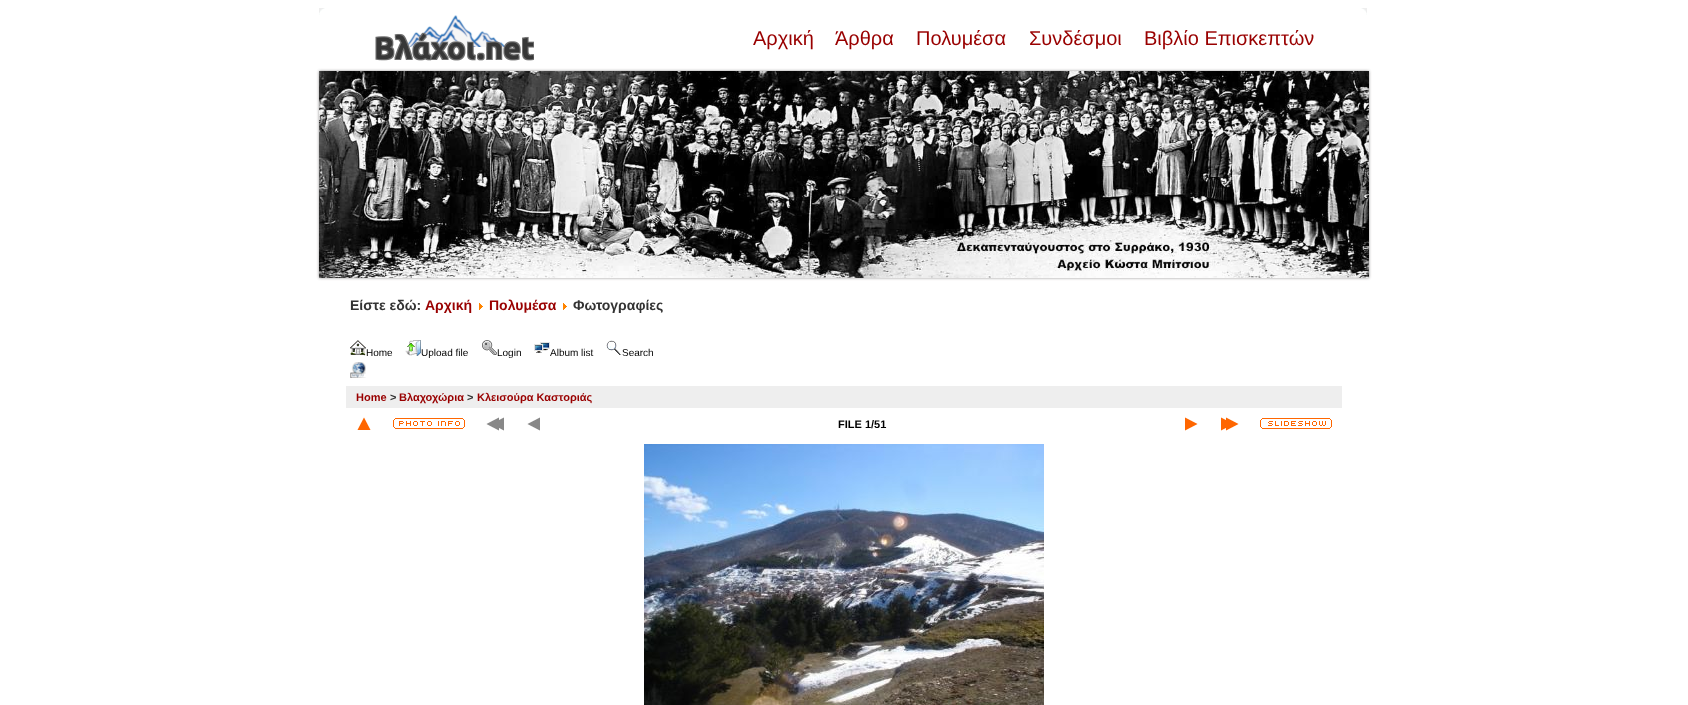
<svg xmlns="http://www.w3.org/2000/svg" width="1688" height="705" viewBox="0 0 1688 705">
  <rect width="100%" height="100%" fill="#fff"/>
  <image x="319" y="8" width="6" height="7" href="img/1.png"/>
  <image x="1361" y="8" width="6" height="7" href="img/2.png"/>
  <image x="375" y="15" width="159" height="46" href="img/3.png"/>
  <path d="M319 71h1050v207H319z" fill="#949393" filter="blur(1.5px)"/>
  <image x="319" y="71" width="1050" height="207" href="img/4.png"/>
  <image x="479" y="303" width="4" height="7" href="img/5.png"/>
  <image x="563" y="303" width="4" height="7" href="img/5.png"/>
  <image x="350" y="340" width="16" height="16" href="img/6.png"/>
  <image x="405" y="340" width="16" height="16" href="img/7.png"/>
  <image x="482" y="340" width="15" height="15" href="img/8.png"/>
  <image x="534" y="342" width="16" height="11" href="img/9.png"/>
  <image x="606" y="340" width="16" height="15" href="img/10.png"/>
  <image x="350" y="362" width="16" height="16" href="img/11.png"/>
  <path d="M346 386h996v22H346z" fill="#eee"/>
  <image x="357" y="417" width="14" height="13" href="img/12.png"/>
  <image x="393" y="418" width="72" height="11" href="img/13.png"/>
  <image x="486" y="417" width="18" height="14" href="img/14.png"/>
  <image x="527" y="417" width="13" height="14" href="img/15.png"/>
  <image x="1185" y="417" width="13" height="14" href="img/16.png"/>
  <image x="1221" y="417" width="18" height="14" href="img/17.png"/>
  <image x="1260" y="418" width="72" height="11" href="img/18.png"/>
  <image x="644" y="444" width="400" height="261" href="img/19.png"/>
  <g font-family="Liberation Sans" font-size="20" fill="#900">
    <text x="753" y="45">Αρχική</text>
    <text x="835" y="45">Άρθρα</text>
    <text x="916" y="45">Πολυμέσα</text>
    <text x="1029" y="45">Συνδέσμοι</text>
    <text x="1144" y="45">Βιβλίο Επισκεπτών</text>
  </g>
  <text x="350" y="310" font-family="Liberation Sans" font-size="14" font-weight="bold" fill="#333">Είστε εδώ:</text>
  <g font-family="Liberation Sans" font-size="14" font-weight="bold" fill="#900">
    <text x="425" y="310">Αρχική</text>
    <text x="489" y="310">Πολυμέσα</text>
  </g>
  <text x="573" y="310" font-family="Liberation Sans" font-size="14" font-weight="bold" fill="#333">Φωτογραφίες</text>
  <g font-family="Liberation Sans" font-size="10" fill="#000">
    <text x="366" y="356">Home</text>
    <text x="421" y="356">Upload file</text>
    <text x="497" y="356">Login</text>
    <text x="550" y="356">Album list</text>
    <text x="622" y="356">Search</text>
  </g>
  <text x="356" y="401" font-family="Liberation Sans" font-size="11" font-weight="bold" fill="#900">Home</text>
  <text x="390" y="401" font-family="Liberation Sans" font-size="11" font-weight="bold" fill="#333">&gt;</text>
  <text x="399" y="401" font-family="Liberation Sans" font-size="11" font-weight="bold" fill="#900">Βλαχοχώρια</text>
  <text x="467" y="401" font-family="Liberation Sans" font-size="11" font-weight="bold" fill="#333">&gt;</text>
  <text x="477" y="401" font-family="Liberation Sans" font-size="11" font-weight="bold" fill="#900">Κλεισούρα Καστοριάς</text>
  <text x="838" y="428" font-family="Liberation Sans" font-size="11" font-weight="bold" fill="#000">FILE 1/51</text>
</svg>
